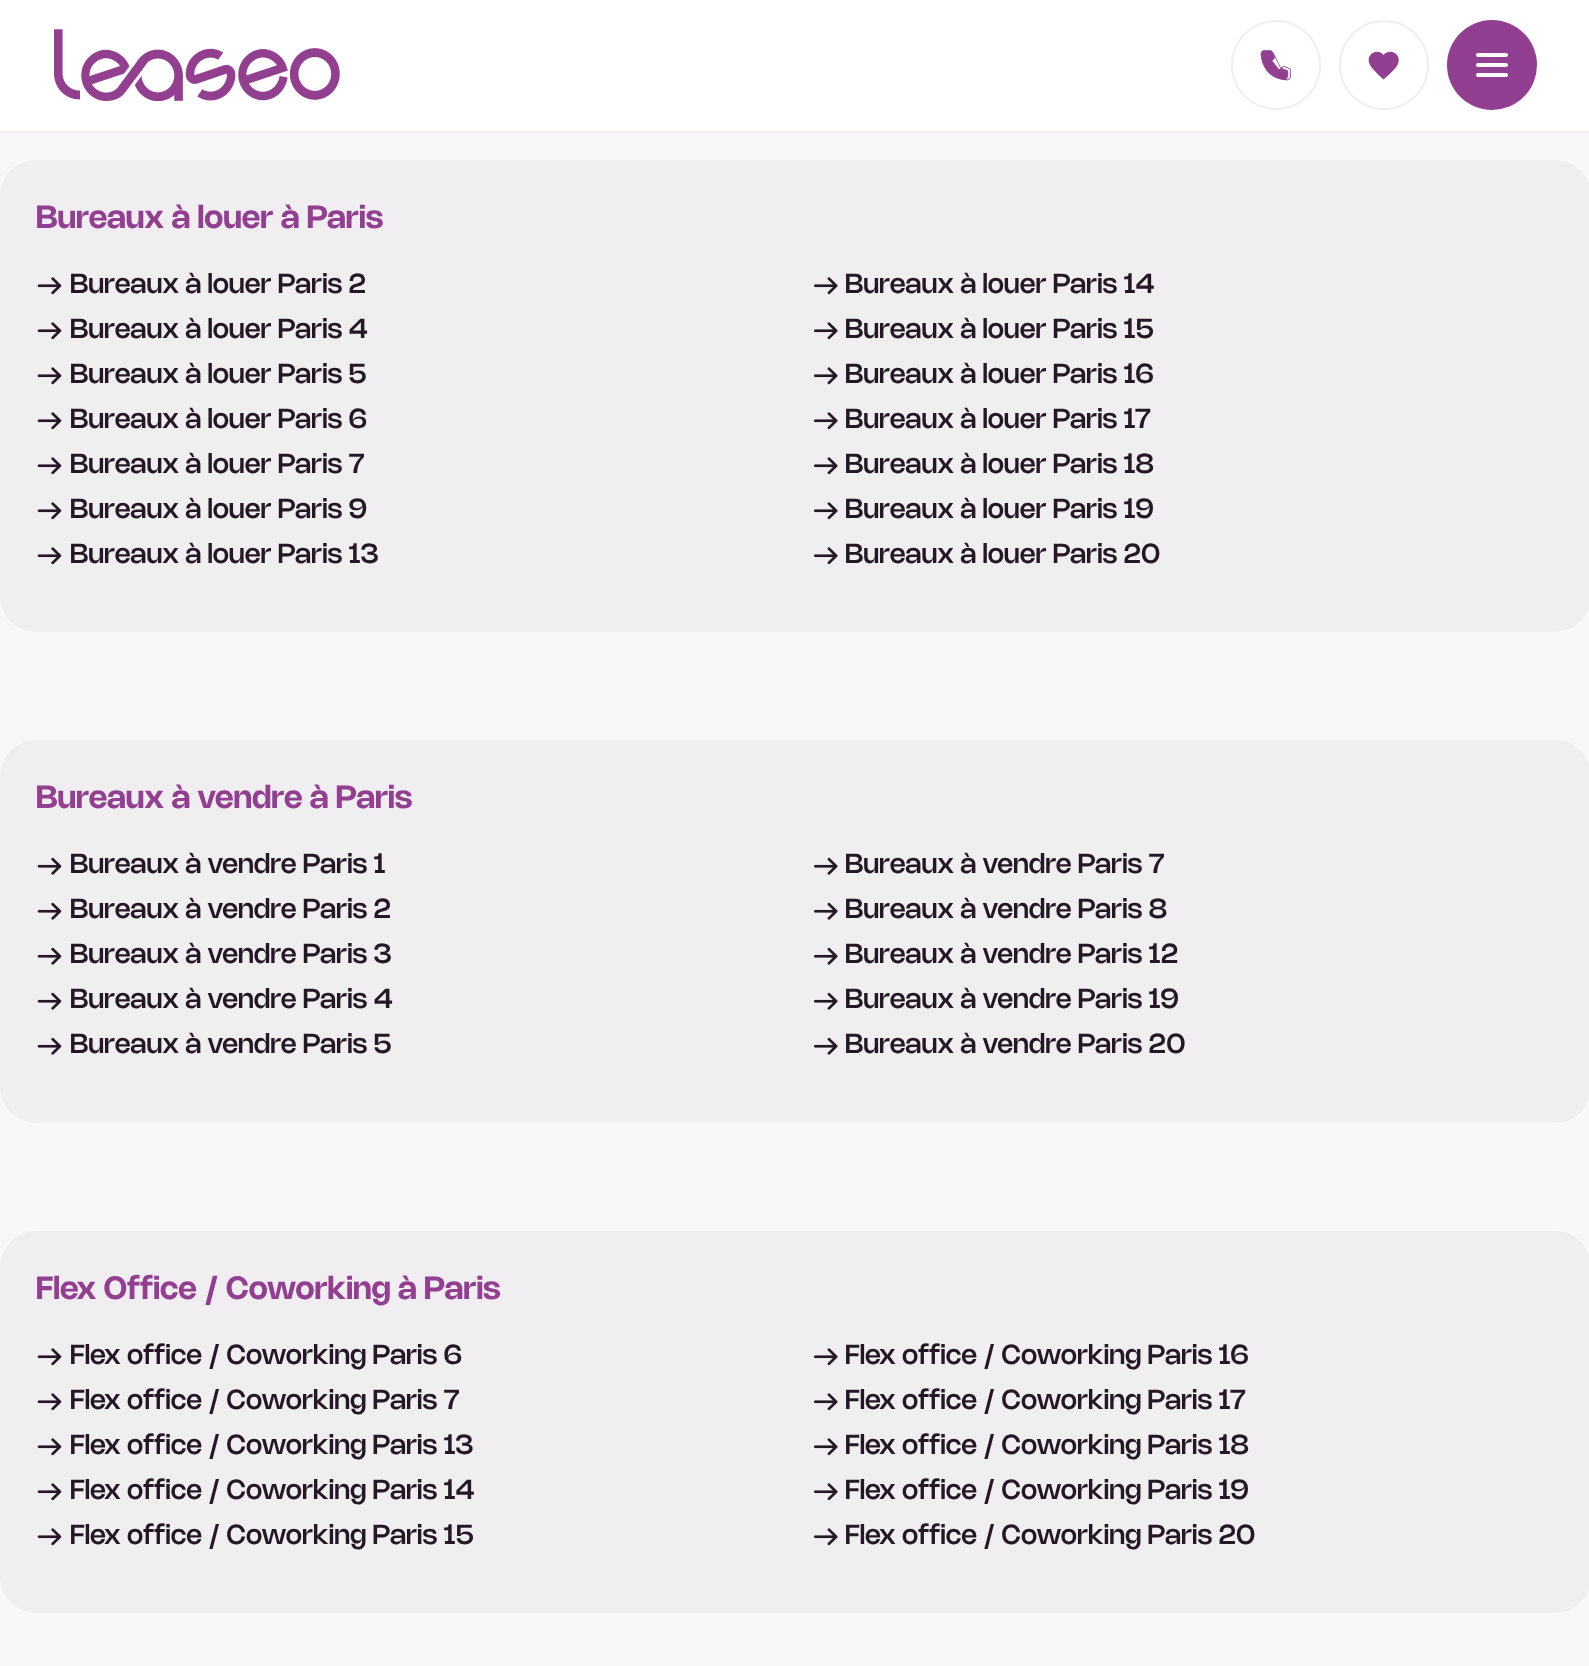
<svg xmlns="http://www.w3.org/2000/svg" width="1589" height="1666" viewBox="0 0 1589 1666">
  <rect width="100%" height="100%" fill="#f9f7f9"/>
  <path d="M0 0h1589v131H0z" fill="#fff"/>
  <path d="M0 131h1589v2H0z" fill="#f1eef1"/>
  <image x="54" y="29" width="286" height="72" href="img/1.png"/>
  <circle cx="1276" cy="65" r="44" fill="none" stroke="#f1eef1" stroke-width="2"/>
  <image x="1260" y="50" width="31" height="31" href="img/2.png"/>
  <circle cx="1384" cy="65" r="44" fill="none" stroke="#f1eef1" stroke-width="2"/>
  <path d="M1383.5 79.5C1379 75 1372.5 70 1369.5 64C1365.5 54.5 1377.5 47.5 1383.5 55C1390 47.5 1402 54.5 1398 64C1395 70 1388.5 75 1383.5 79.5Z" fill="#923e91"/>
  <circle cx="1492" cy="65" r="45" fill="#923e91"/>
  <rect x="1476" y="53" width="32" height="4" rx="2" fill="#fff"/>
  <rect x="1476" y="63" width="32" height="4" rx="2" fill="#fff"/>
  <rect x="1476" y="73" width="32" height="4" rx="2" fill="#fff"/>
  <rect y="160" width="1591" height="472" rx="36" fill="#f1eef1"/>
  <image x="37" y="277" width="25" height="18" href="img/3.png"/>
  <image x="814" y="277" width="24" height="18" href="img/4.png"/>
  <image x="37" y="322" width="25" height="18" href="img/3.png"/>
  <image x="814" y="322" width="24" height="18" href="img/4.png"/>
  <image x="37" y="367" width="25" height="18" href="img/3.png"/>
  <image x="814" y="367" width="24" height="18" href="img/4.png"/>
  <image x="37" y="412" width="25" height="18" href="img/3.png"/>
  <image x="814" y="412" width="24" height="18" href="img/4.png"/>
  <image x="37" y="457" width="25" height="18" href="img/3.png"/>
  <image x="814" y="457" width="24" height="18" href="img/4.png"/>
  <image x="37" y="502" width="25" height="18" href="img/3.png"/>
  <image x="814" y="502" width="24" height="18" href="img/4.png"/>
  <image x="37" y="547" width="25" height="18" href="img/3.png"/>
  <image x="814" y="547" width="24" height="18" href="img/4.png"/>
  <rect y="740" width="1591" height="383" rx="36" fill="#f1eef1"/>
  <image x="37" y="857" width="25" height="18" href="img/5.png"/>
  <image x="814" y="857" width="24" height="18" href="img/6.png"/>
  <image x="37" y="902" width="25" height="18" href="img/5.png"/>
  <image x="814" y="902" width="24" height="18" href="img/6.png"/>
  <image x="37" y="947" width="25" height="18" href="img/5.png"/>
  <image x="814" y="947" width="24" height="18" href="img/6.png"/>
  <image x="37" y="992" width="25" height="18" href="img/5.png"/>
  <image x="814" y="992" width="24" height="18" href="img/6.png"/>
  <image x="37" y="1037" width="25" height="18" href="img/5.png"/>
  <image x="814" y="1037" width="24" height="18" href="img/6.png"/>
  <rect y="1231" width="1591" height="382" rx="36" fill="#f1eef1"/>
  <image x="37" y="1348" width="25" height="18" href="img/3.png"/>
  <image x="814" y="1348" width="24" height="18" href="img/4.png"/>
  <image x="37" y="1393" width="25" height="18" href="img/3.png"/>
  <image x="814" y="1393" width="24" height="18" href="img/4.png"/>
  <image x="37" y="1438" width="25" height="18" href="img/3.png"/>
  <image x="814" y="1438" width="24" height="18" href="img/4.png"/>
  <image x="37" y="1483" width="25" height="18" href="img/3.png"/>
  <image x="814" y="1483" width="24" height="18" href="img/4.png"/>
  <image x="37" y="1528" width="25" height="18" href="img/3.png"/>
  <image x="814" y="1528" width="24" height="18" href="img/4.png"/>
  <text x="36" y="228" font-family="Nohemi" font-size="31.5" font-weight="600" fill="#923e91">Bureaux à louer à Paris</text>
  <g font-family="Nohemi" font-size="27" font-weight="500" fill="#251825">
    <text x="70" y="293">Bureaux à louer Paris 2</text>
    <text x="845" y="293">Bureaux à louer Paris 14</text>
    <text x="70" y="338">Bureaux à louer Paris 4</text>
    <text x="845" y="338">Bureaux à louer Paris 15</text>
    <text x="70" y="383">Bureaux à louer Paris 5</text>
    <text x="845" y="383">Bureaux à louer Paris 16</text>
    <text x="70" y="428">Bureaux à louer Paris 6</text>
    <text x="845" y="428">Bureaux à louer Paris 17</text>
    <text x="70" y="473">Bureaux à louer Paris 7</text>
    <text x="845" y="473">Bureaux à louer Paris 18</text>
    <text x="70" y="518">Bureaux à louer Paris 9</text>
    <text x="845" y="518">Bureaux à louer Paris 19</text>
    <text x="70" y="563">Bureaux à louer Paris 13</text>
    <text x="845" y="563">Bureaux à louer Paris 20</text>
  </g>
  <text x="36" y="808" font-family="Nohemi" font-size="31.5" font-weight="600" fill="#923e91">Bureaux à vendre à Paris</text>
  <g font-family="Nohemi" font-size="27" font-weight="500" fill="#251825">
    <text x="70" y="873">Bureaux à vendre Paris 1</text>
    <text x="845" y="873">Bureaux à vendre Paris 7</text>
    <text x="70" y="918">Bureaux à vendre Paris 2</text>
    <text x="845" y="918">Bureaux à vendre Paris 8</text>
    <text x="70" y="963">Bureaux à vendre Paris 3</text>
    <text x="845" y="963">Bureaux à vendre Paris 12</text>
    <text x="70" y="1008">Bureaux à vendre Paris 4</text>
    <text x="845" y="1008">Bureaux à vendre Paris 19</text>
    <text x="70" y="1053">Bureaux à vendre Paris 5</text>
    <text x="845" y="1053">Bureaux à vendre Paris 20</text>
  </g>
  <text x="36" y="1299" font-family="Nohemi" font-size="31.5" font-weight="600" fill="#923e91">Flex Office / Coworking à Paris</text>
  <g font-family="Nohemi" font-size="27" font-weight="500" fill="#251825">
    <text x="70" y="1364">Flex office / Coworking Paris 6</text>
    <text x="845" y="1364">Flex office / Coworking Paris 16</text>
    <text x="70" y="1409">Flex office / Coworking Paris 7</text>
    <text x="845" y="1409">Flex office / Coworking Paris 17</text>
    <text x="70" y="1454">Flex office / Coworking Paris 13</text>
    <text x="845" y="1454">Flex office / Coworking Paris 18</text>
    <text x="70" y="1499">Flex office / Coworking Paris 14</text>
    <text x="845" y="1499">Flex office / Coworking Paris 19</text>
    <text x="70" y="1544">Flex office / Coworking Paris 15</text>
    <text x="845" y="1544">Flex office / Coworking Paris 20</text>
  </g>
</svg>
